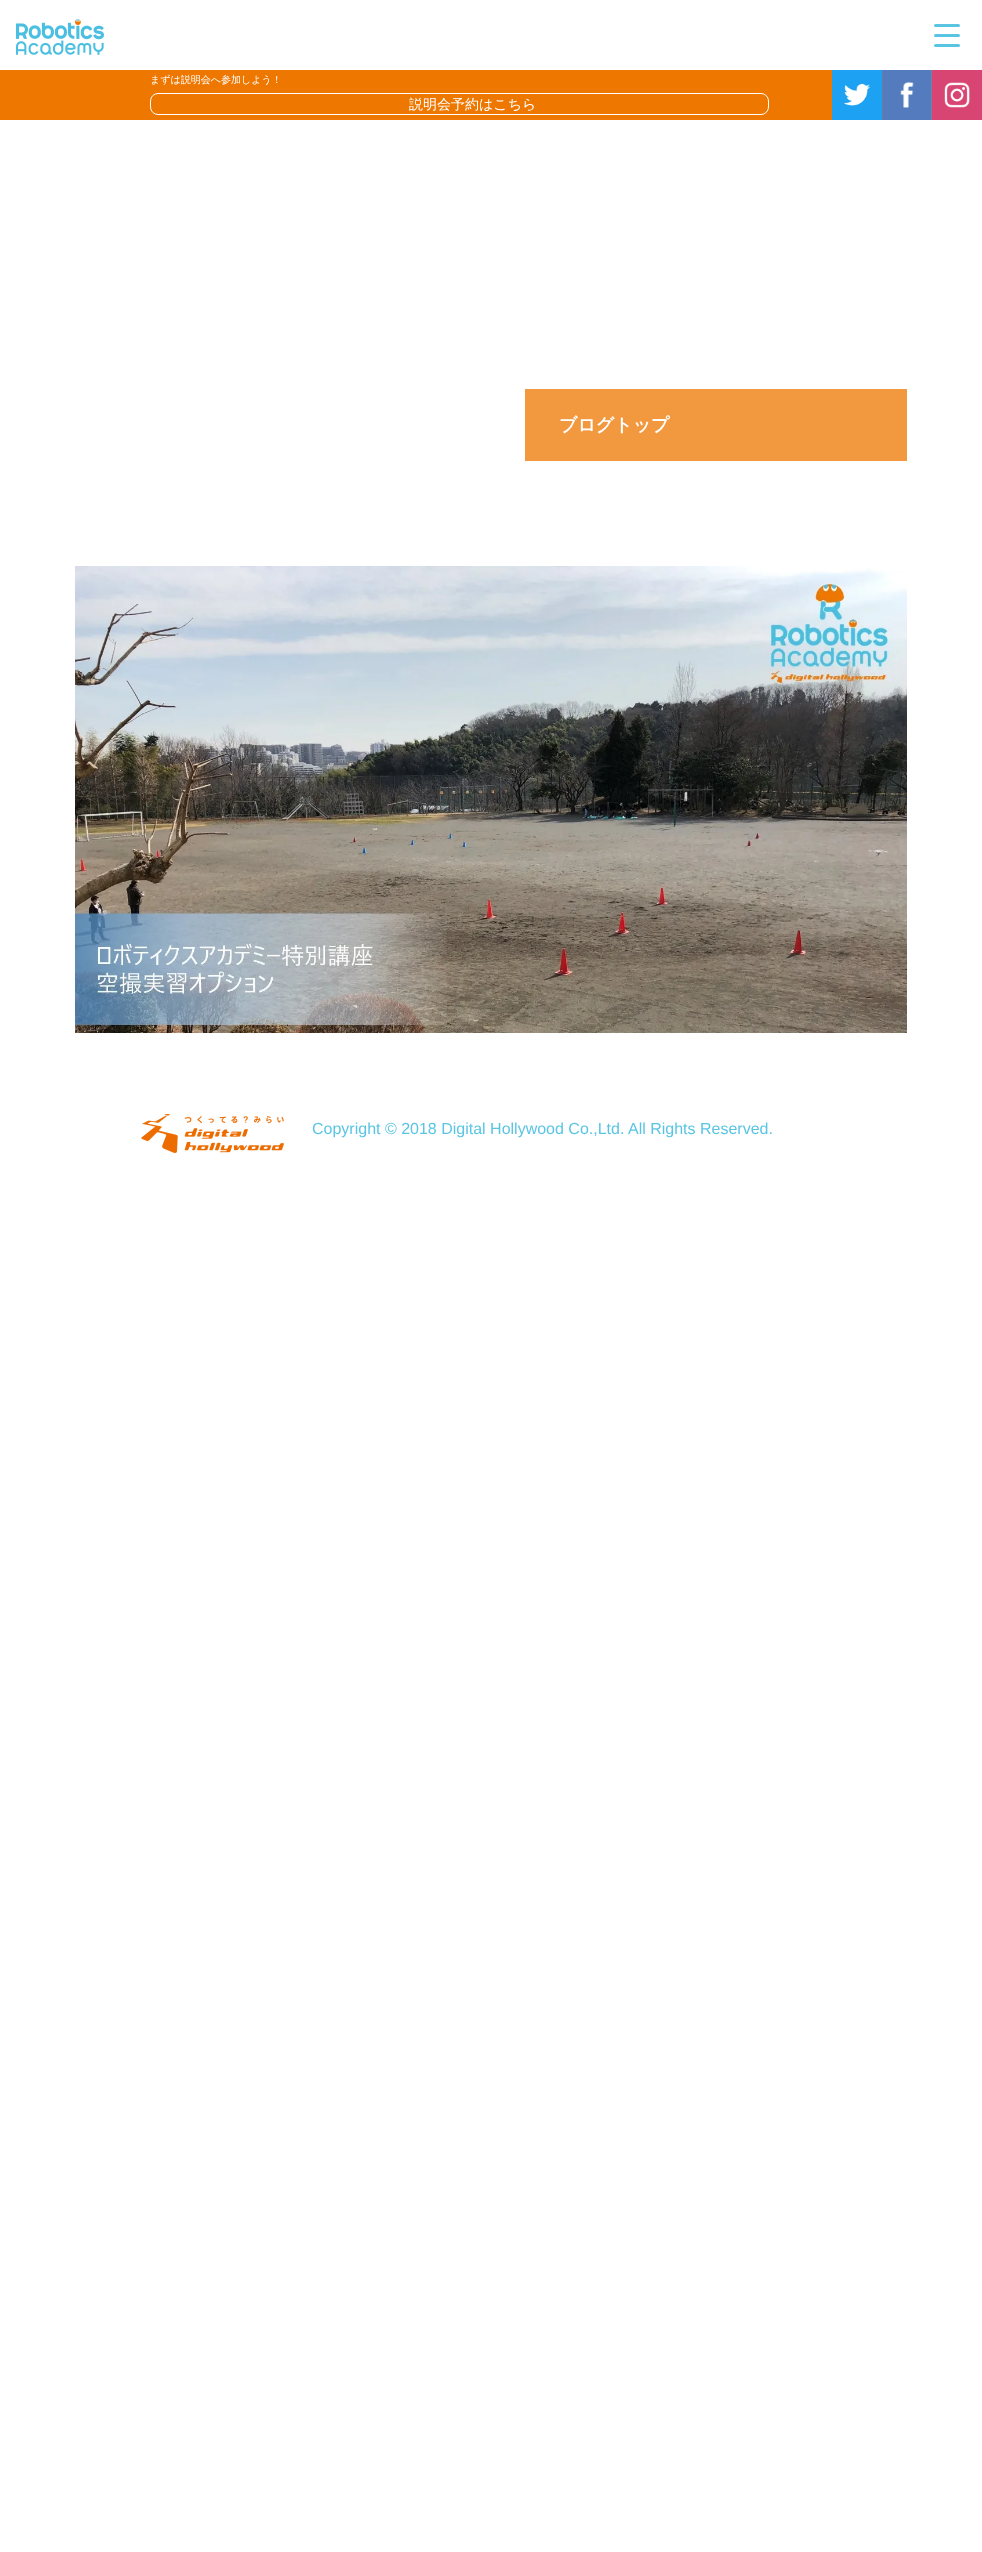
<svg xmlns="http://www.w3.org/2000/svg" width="982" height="2552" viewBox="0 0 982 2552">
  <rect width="100%" height="100%" fill="#fff"/>
  <image x="16" y="19" width="88" height="36" href="img/1.png"/>
  <rect x="934" y="24" width="26" height="3" rx="1.5" fill="#5ac5e3"/>
  <rect x="934" y="34" width="26" height="3" rx="1.5" fill="#5ac5e3"/>
  <rect x="934" y="44" width="26" height="3" rx="1.5" fill="#5ac5e3"/>
  <path d="M0 70h932v50H0z" fill="#e70"/>
  <rect x="150.5" y="93.5" width="618" height="21" rx="7.5" fill="none" stroke="#fff"/>
  <image x="832" y="70" width="50" height="50" href="img/2.png"/>
  <image x="881" y="70" width="51" height="50" href="img/3.png"/>
  <image x="932" y="70" width="50" height="50" href="img/4.png"/>
  <path d="M525 389h382v72H525z" fill="#f29940"/>
  <image x="75" y="566" width="832" height="467" href="img/5.png"/>
  <image x="141" y="1114" width="143" height="39" href="img/6.png"/>
  <text x="150" y="83" font-family="WenQuanYi Zen Hei" font-size="10" font-weight="500" fill="#fff">まずは説明会へ参加しよう！</text>
  <text x="409" y="109" font-family="WenQuanYi Zen Hei" font-size="14" font-weight="500" fill="#fff">説明会予約はこちら</text>
  <text x="559" y="431" font-family="WenQuanYi Zen Hei" font-size="18" font-weight="bold" fill="#fff">ブログトップ</text>
  <text x="312" y="1134" font-family="Liberation Sans" font-size="16" fill="#5ac5e3">Copyright © 2018 Digital Hollywood Co.,Ltd. All Rights Reserved.</text>
</svg>
